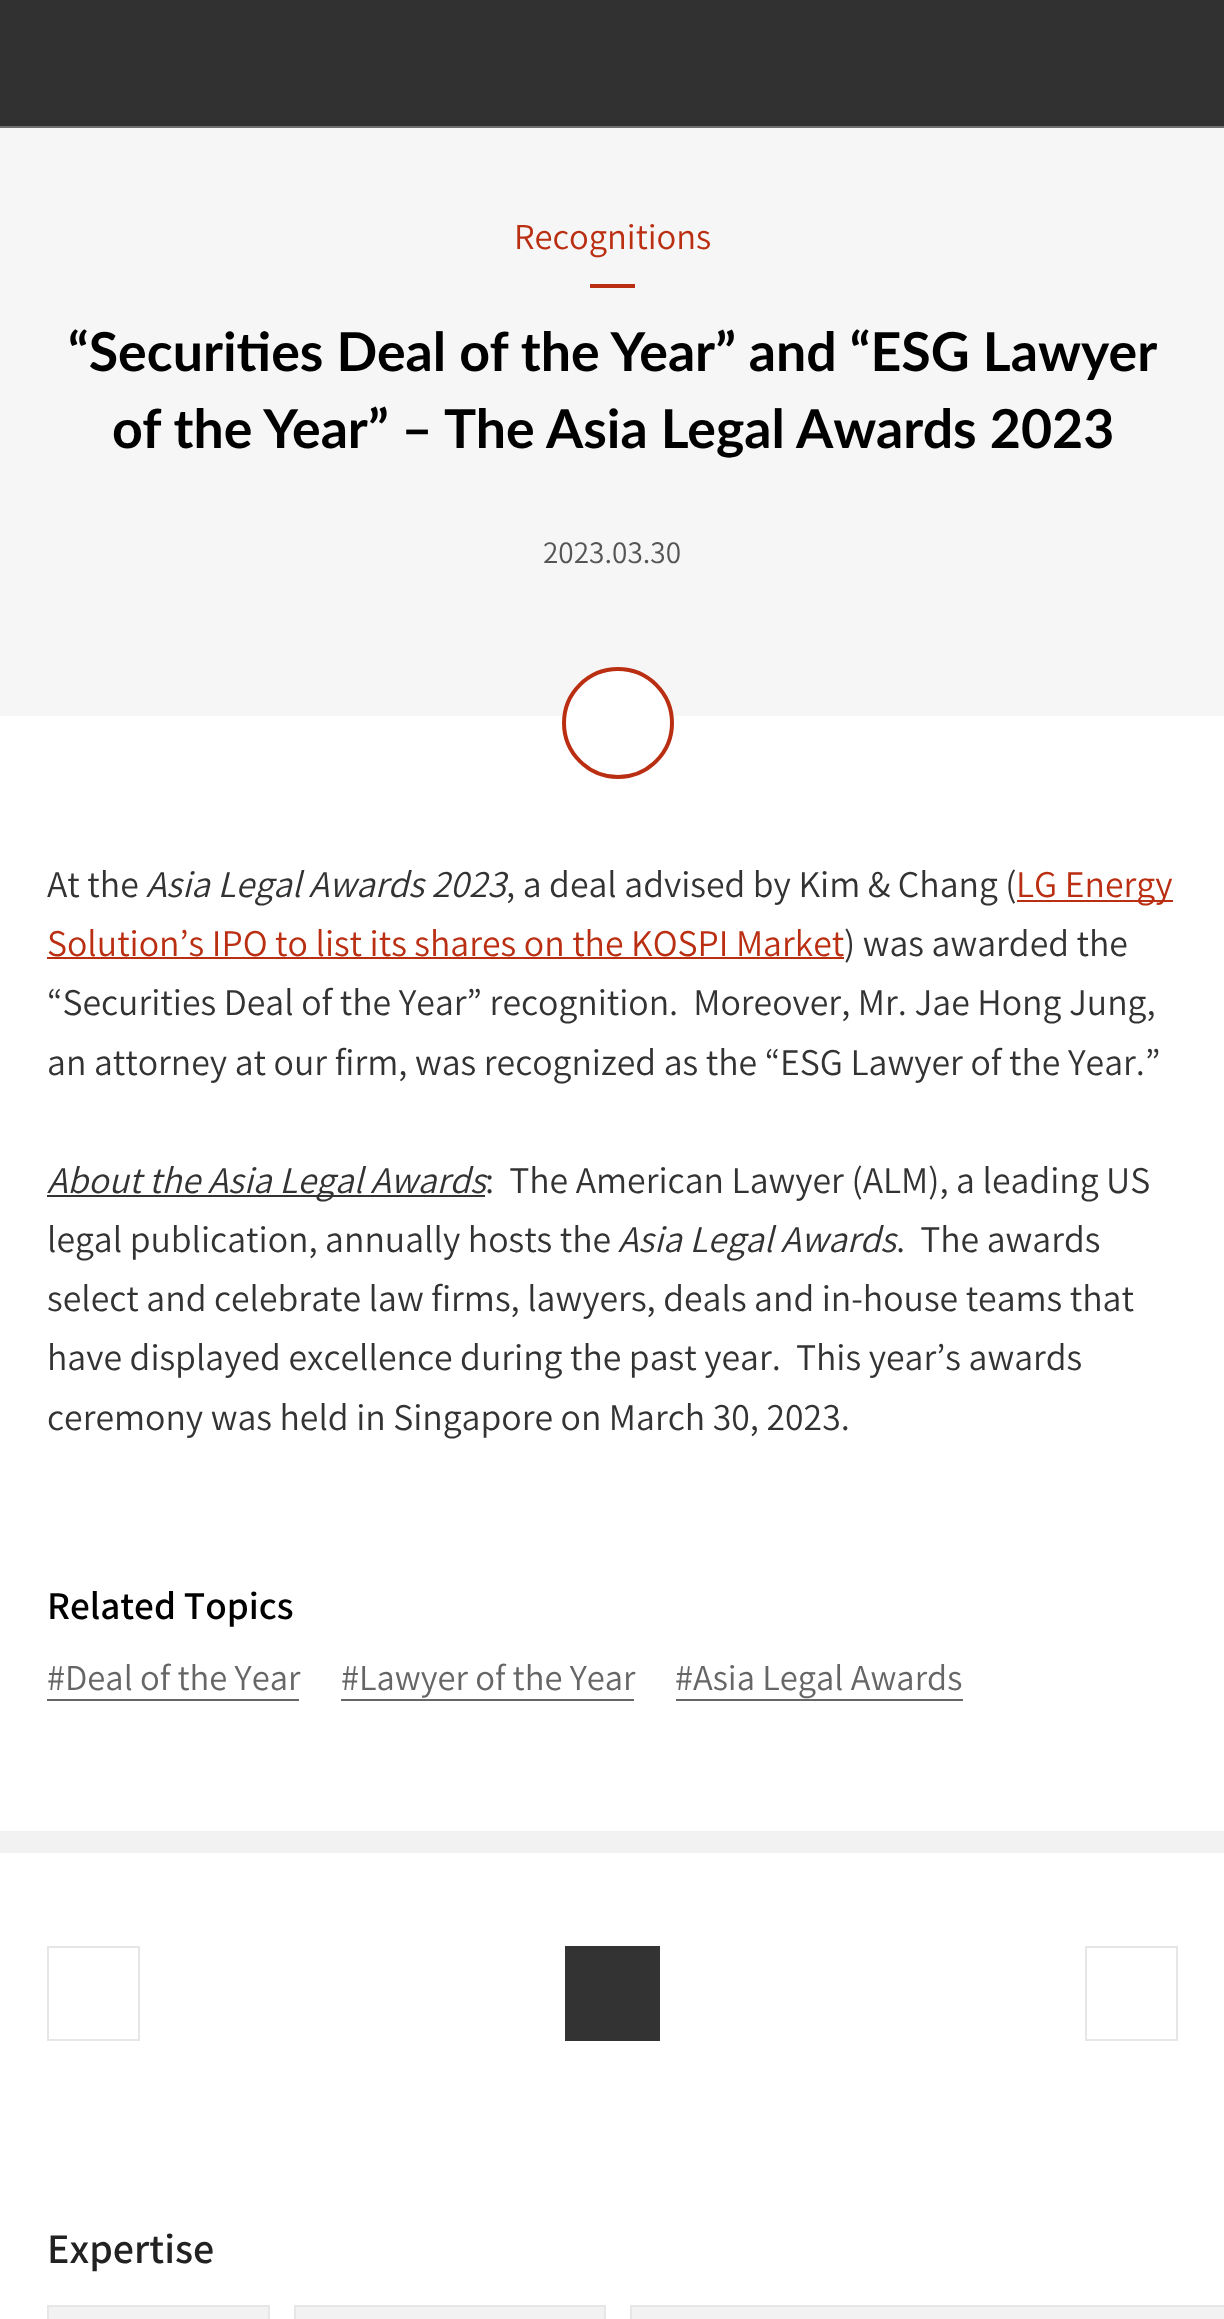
<svg xmlns="http://www.w3.org/2000/svg" width="1224" height="2319" viewBox="0 0 1224 2319">
  <rect width="100%" height="100%" fill="#fff"/>
  <path d="M0 0h1224v126H0z" fill="#313131"/>
  <path d="M0 126h1224v2H0z" fill="#6f6f6f"/>
  <path d="M0 128h1224v588H0z" fill="#f6f6f6"/>
  <path d="M590 284h45v4H590z" fill="#ba2e12"/>
  <circle cx="618" cy="723" r="54" fill="#fff" stroke="#ba2e12" stroke-width="4"/>
  <path d="M0 1831h1224v22H0z" fill="#f2f2f2"/>
  <path d="M1017 900h156v2H1017z" fill="#ba2e12"/>
  <path d="M47 957h797v2H47z" fill="#ba2e12"/>
  <path d="M47 1195h438v2H47z" fill="#333"/>
  <path d="M47 1699h252v2H47z" fill="#666"/>
  <path d="M341 1699h293v2H341z" fill="#666"/>
  <path d="M676 1699h287v2H676z" fill="#666"/>
  <path d="M48 1947h91v93H48z" fill="none" stroke="#e6e6e6" stroke-width="2"/>
  <path d="M565 1946h95v95H565z" fill="#333"/>
  <path d="M1086 1947h91v93H1086z" fill="none" stroke="#e6e6e6" stroke-width="2"/>
  <path d="M48 2306h221v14H48z" fill="#f2f2f2" stroke="#e6e6e6" stroke-width="2"/>
  <path d="M295 2306h310v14H295z" fill="#f2f2f2" stroke="#e6e6e6" stroke-width="2"/>
  <path d="M631 2306h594v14H631z" fill="#f2f2f2" stroke="#e6e6e6" stroke-width="2"/>
  <text x="514" y="249" font-family="Noto Sans KR" font-size="32.75" font-weight="300" fill="#ba2e12">Recognitions</text>
  <g font-family="Lato" font-size="53.7" font-weight="bold" fill="#000">
    <text x="68" y="371">“Securities Deal of the Year” and “ESG Lawyer</text>
    <text x="112" y="448">of the Year” – The Asia Legal Awards 2023</text>
  </g>
  <text x="543" y="563" font-family="Noto Sans KR" font-size="28" font-weight="300" fill="#555">2023.03.30</text>
  <text x="47" y="897" font-family="Noto Sans KR" font-size="33.8" font-weight="300" fill="#333">At the</text>
  <text x="146" y="897" font-family="Noto Sans KR" font-size="33.8" font-weight="300" font-style="italic" fill="#333">Asia Legal Awards 2023</text>
  <text x="506" y="897" font-family="Noto Sans KR" font-size="33.8" font-weight="300" fill="#333">, a deal advised by Kim &amp; Chang (</text>
  <g font-family="Noto Sans KR" font-size="33.8" font-weight="300" fill="#ba2e12">
    <text x="1016" y="897">LG Energy</text>
    <text x="47" y="956">Solution’s IPO to list its shares on the KOSPI Market</text>
  </g>
  <g font-family="Noto Sans KR" font-size="33.8" font-weight="300" fill="#333">
    <text x="844" y="956">) was awarded the</text>
    <text x="47" y="1015" xml:space="preserve">“Securities Deal of the Year” recognition.  Moreover, Mr. Jae Hong Jung,</text>
    <text x="47" y="1075">an attorney at our firm, was recognized as the “ESG Lawyer of the Year.”</text>
  </g>
  <text x="47" y="1193" font-family="Noto Sans KR" font-size="33.8" font-weight="300" font-style="italic" fill="#333">About the Asia Legal Awards</text>
  <g font-family="Noto Sans KR" font-size="33.8" font-weight="300" fill="#333">
    <text x="485" y="1193" xml:space="preserve">:  The American Lawyer (ALM), a leading US</text>
    <text x="47" y="1252">legal publication, annually hosts the</text>
  </g>
  <text x="618" y="1252" font-family="Noto Sans KR" font-size="33.8" font-weight="300" font-style="italic" fill="#333">Asia Legal Awards</text>
  <g font-family="Noto Sans KR" font-size="33.8" font-weight="300" fill="#333">
    <text x="896" y="1252" xml:space="preserve">.  The awards</text>
    <text x="47" y="1311">select and celebrate law firms, lawyers, deals and in-house teams that</text>
    <text x="47" y="1370" xml:space="preserve">have displayed excellence during the past year.  This year’s awards</text>
    <text x="47" y="1430">ceremony was held in Singapore on March 30, 2023.</text>
  </g>
  <text x="47" y="1619" font-family="Noto Sans KR" font-size="35" font-weight="500" fill="#000">Related Topics</text>
  <g font-family="Noto Sans KR" font-size="32.75" font-weight="300" fill="#666">
    <text x="47" y="1690">#Deal of the Year</text>
    <text x="341" y="1690">#Lawyer of the Year</text>
    <text x="675" y="1690">#Asia Legal Awards</text>
  </g>
  <text x="47" y="2263" font-family="Noto Sans KR" font-size="37.5" font-weight="500" fill="#222">Expertise</text>
</svg>
